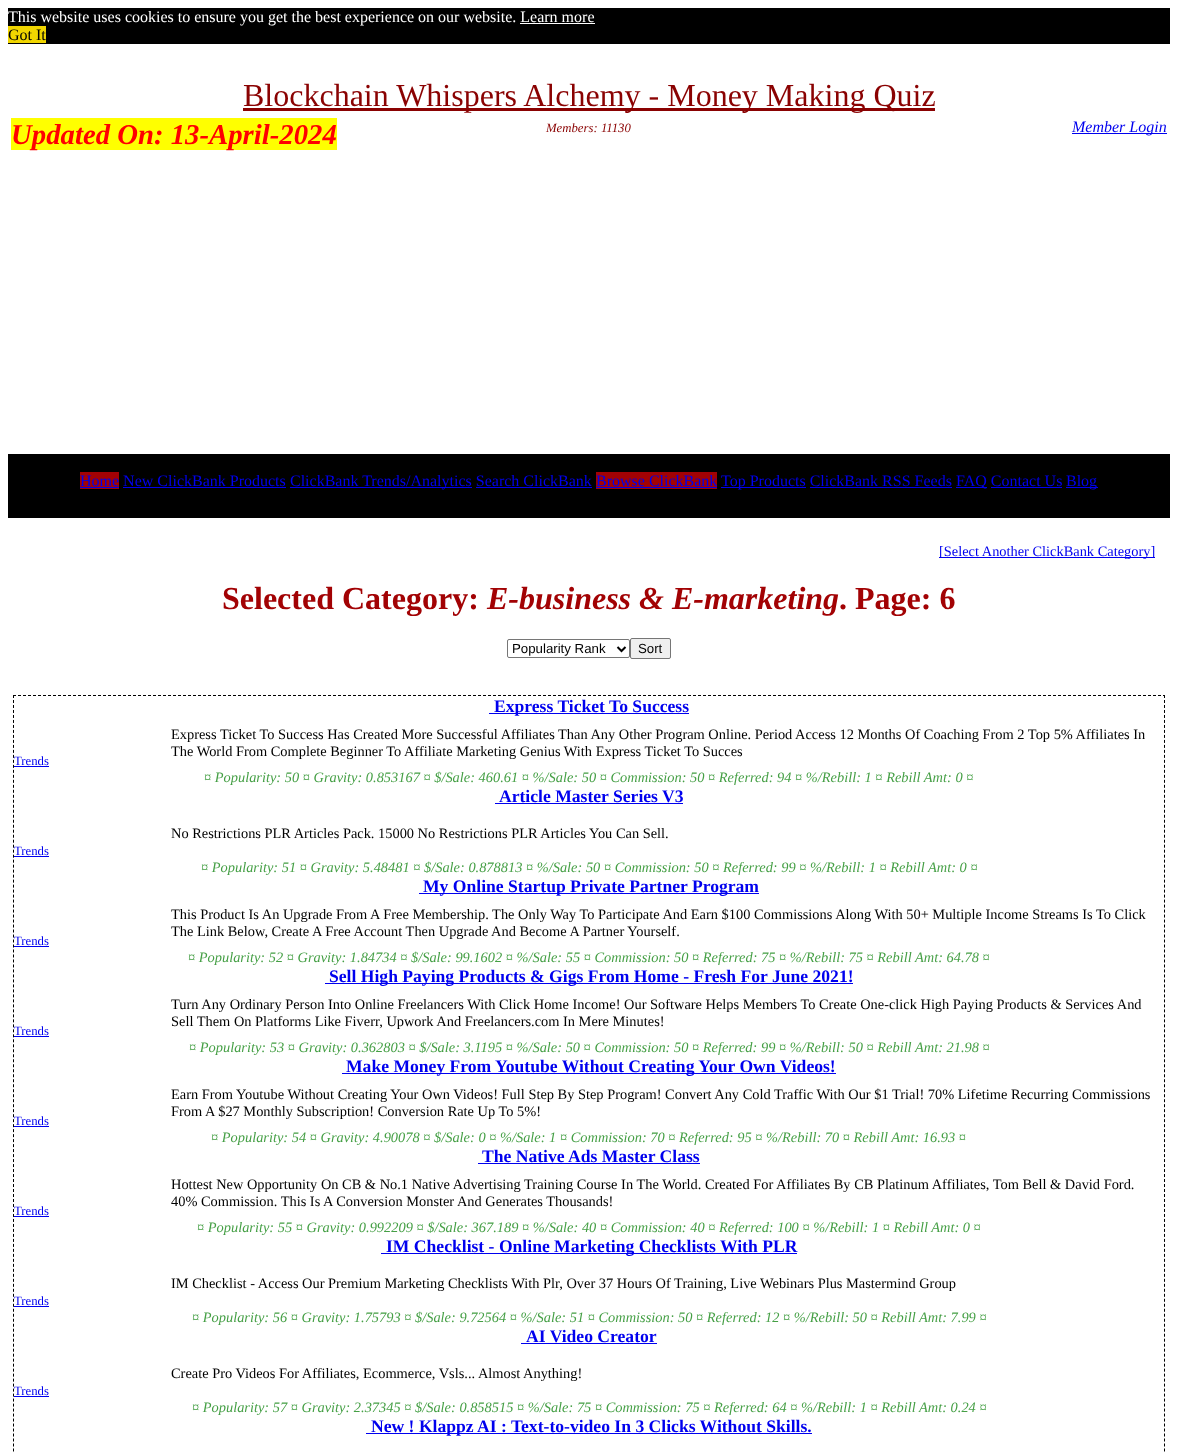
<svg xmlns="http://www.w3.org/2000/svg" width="1178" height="1453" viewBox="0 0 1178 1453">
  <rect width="100%" height="100%" fill="#fff"/>
  <path d="M8 8h1162v36H8z" fill="#000"/>
  <path d="M520 23h75v1H520z" fill="#fff"/>
  <path d="M8 26h38v17H8z" fill="#f1d600"/>
  <path d="M243 108h692v3H243z" fill="#8a0202"/>
  <path d="M11 118h326v32H11z" fill="#ff0"/>
  <path d="M1072 133h95v1H1072z" fill="#00e"/>
  <path d="M8 454h1162v64H8z" fill="#000"/>
  <path d="M80 472h39v17H80z" fill="#a20204"/>
  <path d="M80 487h39v1H80z" fill="#00e"/>
  <path d="M290 487h182v1H290z" fill="#00e"/>
  <path d="M596 472h121v17H596z" fill="#a20204"/>
  <path d="M596 487h121v1H596z" fill="#00e"/>
  <path d="M721 487h85v1H721z" fill="#00e"/>
  <path d="M956 487h31v1H956z" fill="#00e"/>
  <path d="M1066 487h32v1H1066z" fill="#00e"/>
  <path d="M123 487h163v1H123z" fill="#00e"/>
  <path d="M476 487h116v1H476z" fill="#00e"/>
  <path d="M810 487h142v1H810z" fill="#00e"/>
  <path d="M991 487h71v1H991z" fill="#00e"/>
  <path d="M939 557h216v1H939z" fill="#00e"/>
  <rect x="507.5" y="639.5" width="122" height="18" rx="1.5" fill="none" stroke="#767676"/>
  <path d="M617.5 647L621.5 651L625.5 647" fill="none" stroke="#000" stroke-width="2"/>
  <rect x="630.5" y="638.5" width="40" height="20" rx="1.5" fill="#efefef" stroke="#767676"/>
  <path d="M13 695.5H1165" fill="none" stroke="#000" stroke-dasharray="3 2"/>
  <path d="M1164.5 695V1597" fill="none" stroke="#000" stroke-dasharray="3 1.99"/>
  <path d="M13.5 695V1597" fill="none" stroke="#000" stroke-dasharray="3 1.99"/>
  <path d="M489 713h200v1H489z" fill="#00e"/>
  <path d="M14 766h35v1H14z" fill="#00e"/>
  <path d="M495 803h188v1H495z" fill="#00e"/>
  <path d="M14 856h35v1H14z" fill="#00e"/>
  <path d="M419 893h340v1H419z" fill="#00e"/>
  <path d="M14 946h35v1H14z" fill="#00e"/>
  <path d="M325 983h528v1H325z" fill="#00e"/>
  <path d="M14 1036h35v1H14z" fill="#00e"/>
  <path d="M342 1073h494v1H342z" fill="#00e"/>
  <path d="M14 1126h35v1H14z" fill="#00e"/>
  <path d="M478 1163h222v1H478z" fill="#00e"/>
  <path d="M14 1216h35v1H14z" fill="#00e"/>
  <path d="M381 1253h416v1H381z" fill="#00e"/>
  <path d="M14 1306h35v1H14z" fill="#00e"/>
  <path d="M521 1343h136v1H521z" fill="#00e"/>
  <path d="M14 1396h35v1H14z" fill="#00e"/>
  <path d="M366 1433h446v1H366z" fill="#00e"/>
  <text x="8" y="22" font-family="Liberation Serif" font-size="16" fill="#fff">This website uses cookies to ensure you get the best experience on our website. Learn more</text>
  <text x="8" y="40" font-family="Liberation Serif" font-size="16" fill="#000">Got It</text>
  <text x="243" y="106" font-family="Liberation Serif" font-size="32" fill="#8a0202">Blockchain Whispers Alchemy - Money Making Quiz</text>
  <text x="11" y="144" font-family="Liberation Serif" font-size="28.75" font-weight="bold" font-style="italic" fill="#f00">Updated On: 13-April-2024</text>
  <text x="546" y="132" font-family="Liberation Serif" font-size="12.75" font-style="italic" fill="#8a0202">Members: 11130</text>
  <text x="1072" y="132" font-family="Liberation Serif" font-size="16" font-style="italic" fill="#00e">Member Login</text>
  <g font-family="Liberation Serif" font-size="16" fill="#00e">
    <text x="80" y="486">Home New ClickBank Products</text>
    <text x="290" y="486">ClickBank Trends/Analytics Search ClickBank</text>
    <text x="596" y="486">Browse ClickBank</text>
    <text x="721" y="486">Top Products ClickBank RSS Feeds</text>
    <text x="956" y="486">FAQ Contact Us</text>
    <text x="1066" y="486">Blog</text>
  </g>
  <text x="939" y="556" font-family="Liberation Serif" font-size="14.4" fill="#00e">[Select Another ClickBank Category]</text>
  <text x="222" y="609" font-family="Liberation Serif" font-size="32" font-weight="bold" fill="#a20204">Selected Category:</text>
  <text x="487" y="609" font-family="Liberation Serif" font-size="32" font-weight="bold" font-style="italic" fill="#a20204">E-business &amp; E-marketing</text>
  <text x="839" y="609" font-family="Liberation Serif" font-size="32" font-weight="bold" fill="#a20204">. Page: 6</text>
  <g font-family="Liberation Sans" font-size="13.25" fill="#000">
    <text x="512" y="653">Popularity Rank</text>
    <text x="638" y="653">Sort</text>
  </g>
  <text x="494" y="712" font-family="Liberation Serif" font-size="17.6" font-weight="bold" fill="#00e">Express Ticket To Success</text>
  <g font-family="Liberation Serif" font-size="14.4" fill="#000">
    <text x="171" y="739">Express Ticket To Success Has Created More Successful Affiliates Than Any Other Program Online. Period Access 12 Months Of Coaching From 2 Top 5% Affiliates In</text>
    <text x="171" y="756">The World From Complete Beginner To Affiliate Marketing Genius With Express Ticket To Succes</text>
  </g>
  <text x="14" y="765" font-family="Liberation Serif" font-size="12.75" fill="#00e">Trends</text>
  <text x="204" y="782" font-family="Liberation Serif" font-size="14.4" font-style="italic" fill="#459f45">¤ Popularity: 50 ¤ Gravity: 0.853167 ¤ $/Sale: 460.61 ¤ %/Sale: 50 ¤ Commission: 50 ¤ Referred: 94 ¤ %/Rebill: 1 ¤ Rebill Amt: 0 ¤</text>
  <text x="499" y="802" font-family="Liberation Serif" font-size="17.6" font-weight="bold" fill="#00e">Article Master Series V3</text>
  <text x="171" y="838" font-family="Liberation Serif" font-size="14.4" fill="#000">No Restrictions PLR Articles Pack. 15000 No Restrictions PLR Articles You Can Sell.</text>
  <text x="14" y="855" font-family="Liberation Serif" font-size="12.75" fill="#00e">Trends</text>
  <text x="201" y="872" font-family="Liberation Serif" font-size="14.4" font-style="italic" fill="#459f45">¤ Popularity: 51 ¤ Gravity: 5.48481 ¤ $/Sale: 0.878813 ¤ %/Sale: 50 ¤ Commission: 50 ¤ Referred: 99 ¤ %/Rebill: 1 ¤ Rebill Amt: 0 ¤</text>
  <text x="423" y="892" font-family="Liberation Serif" font-size="17.6" font-weight="bold" fill="#00e">My Online Startup Private Partner Program</text>
  <g font-family="Liberation Serif" font-size="14.4" fill="#000">
    <text x="171" y="919">This Product Is An Upgrade From A Free Membership. The Only Way To Participate And Earn $100 Commissions Along With 50+ Multiple Income Streams Is To Click</text>
    <text x="171" y="936">The Link Below, Create A Free Account Then Upgrade And Become A Partner Yourself.</text>
  </g>
  <text x="14" y="945" font-family="Liberation Serif" font-size="12.75" fill="#00e">Trends</text>
  <text x="188" y="962" font-family="Liberation Serif" font-size="14.4" font-style="italic" fill="#459f45">¤ Popularity: 52 ¤ Gravity: 1.84734 ¤ $/Sale: 99.1602 ¤ %/Sale: 55 ¤ Commission: 50 ¤ Referred: 75 ¤ %/Rebill: 75 ¤ Rebill Amt: 64.78 ¤</text>
  <text x="329" y="982" font-family="Liberation Serif" font-size="17.6" font-weight="bold" fill="#00e">Sell High Paying Products &amp; Gigs From Home - Fresh For June 2021!</text>
  <g font-family="Liberation Serif" font-size="14.4" fill="#000">
    <text x="171" y="1009">Turn Any Ordinary Person Into Online Freelancers With Click Home Income! Our Software Helps Members To Create One-click High Paying Products &amp; Services And</text>
    <text x="171" y="1026">Sell Them On Platforms Like Fiverr, Upwork And Freelancers.com In Mere Minutes!</text>
  </g>
  <text x="14" y="1035" font-family="Liberation Serif" font-size="12.75" fill="#00e">Trends</text>
  <text x="189" y="1052" font-family="Liberation Serif" font-size="14.4" font-style="italic" fill="#459f45">¤ Popularity: 53 ¤ Gravity: 0.362803 ¤ $/Sale: 3.1195 ¤ %/Sale: 50 ¤ Commission: 50 ¤ Referred: 99 ¤ %/Rebill: 50 ¤ Rebill Amt: 21.98 ¤</text>
  <text x="346" y="1072" font-family="Liberation Serif" font-size="17.6" font-weight="bold" fill="#00e">Make Money From Youtube Without Creating Your Own Videos!</text>
  <g font-family="Liberation Serif" font-size="14.4" fill="#000">
    <text x="171" y="1099">Earn From Youtube Without Creating Your Own Videos! Full Step By Step Program! Convert Any Cold Traffic With Our $1 Trial! 70% Lifetime Recurring Commissions</text>
    <text x="171" y="1116">From A $27 Monthly Subscription! Conversion Rate Up To 5%!</text>
  </g>
  <text x="14" y="1125" font-family="Liberation Serif" font-size="12.75" fill="#00e">Trends</text>
  <text x="211" y="1142" font-family="Liberation Serif" font-size="14.4" font-style="italic" fill="#459f45">¤ Popularity: 54 ¤ Gravity: 4.90078 ¤ $/Sale: 0 ¤ %/Sale: 1 ¤ Commission: 70 ¤ Referred: 95 ¤ %/Rebill: 70 ¤ Rebill Amt: 16.93 ¤</text>
  <text x="482" y="1162" font-family="Liberation Serif" font-size="17.6" font-weight="bold" fill="#00e">The Native Ads Master Class</text>
  <g font-family="Liberation Serif" font-size="14.4" fill="#000">
    <text x="171" y="1189">Hottest New Opportunity On CB &amp; No.1 Native Advertising Training Course In The World. Created For Affiliates By CB Platinum Affiliates, Tom Bell &amp; David Ford.</text>
    <text x="171" y="1206">40% Commission. This Is A Conversion Monster And Generates Thousands!</text>
  </g>
  <text x="14" y="1215" font-family="Liberation Serif" font-size="12.75" fill="#00e">Trends</text>
  <text x="197" y="1232" font-family="Liberation Serif" font-size="14.4" font-style="italic" fill="#459f45">¤ Popularity: 55 ¤ Gravity: 0.992209 ¤ $/Sale: 367.189 ¤ %/Sale: 40 ¤ Commission: 40 ¤ Referred: 100 ¤ %/Rebill: 1 ¤ Rebill Amt: 0 ¤</text>
  <text x="386" y="1252" font-family="Liberation Serif" font-size="17.6" font-weight="bold" fill="#00e">IM Checklist - Online Marketing Checklists With PLR</text>
  <text x="171" y="1288" font-family="Liberation Serif" font-size="14.4" fill="#000">IM Checklist - Access Our Premium Marketing Checklists With Plr, Over 37 Hours Of Training, Live Webinars Plus Mastermind Group</text>
  <text x="14" y="1305" font-family="Liberation Serif" font-size="12.75" fill="#00e">Trends</text>
  <text x="192" y="1322" font-family="Liberation Serif" font-size="14.4" font-style="italic" fill="#459f45">¤ Popularity: 56 ¤ Gravity: 1.75793 ¤ $/Sale: 9.72564 ¤ %/Sale: 51 ¤ Commission: 50 ¤ Referred: 12 ¤ %/Rebill: 50 ¤ Rebill Amt: 7.99 ¤</text>
  <text x="526" y="1342" font-family="Liberation Serif" font-size="17.6" font-weight="bold" fill="#00e">AI Video Creator</text>
  <text x="171" y="1378" font-family="Liberation Serif" font-size="14.4" fill="#000">Create Pro Videos For Affiliates, Ecommerce, Vsls... Almost Anything!</text>
  <text x="14" y="1395" font-family="Liberation Serif" font-size="12.75" fill="#00e">Trends</text>
  <text x="192" y="1412" font-family="Liberation Serif" font-size="14.4" font-style="italic" fill="#459f45">¤ Popularity: 57 ¤ Gravity: 2.37345 ¤ $/Sale: 0.858515 ¤ %/Sale: 75 ¤ Commission: 75 ¤ Referred: 64 ¤ %/Rebill: 1 ¤ Rebill Amt: 0.24 ¤</text>
  <text x="371" y="1432" font-family="Liberation Serif" font-size="17.6" font-weight="bold" fill="#00e">New ! Klappz AI : Text-to-video In 3 Clicks Without Skills.</text>
</svg>
